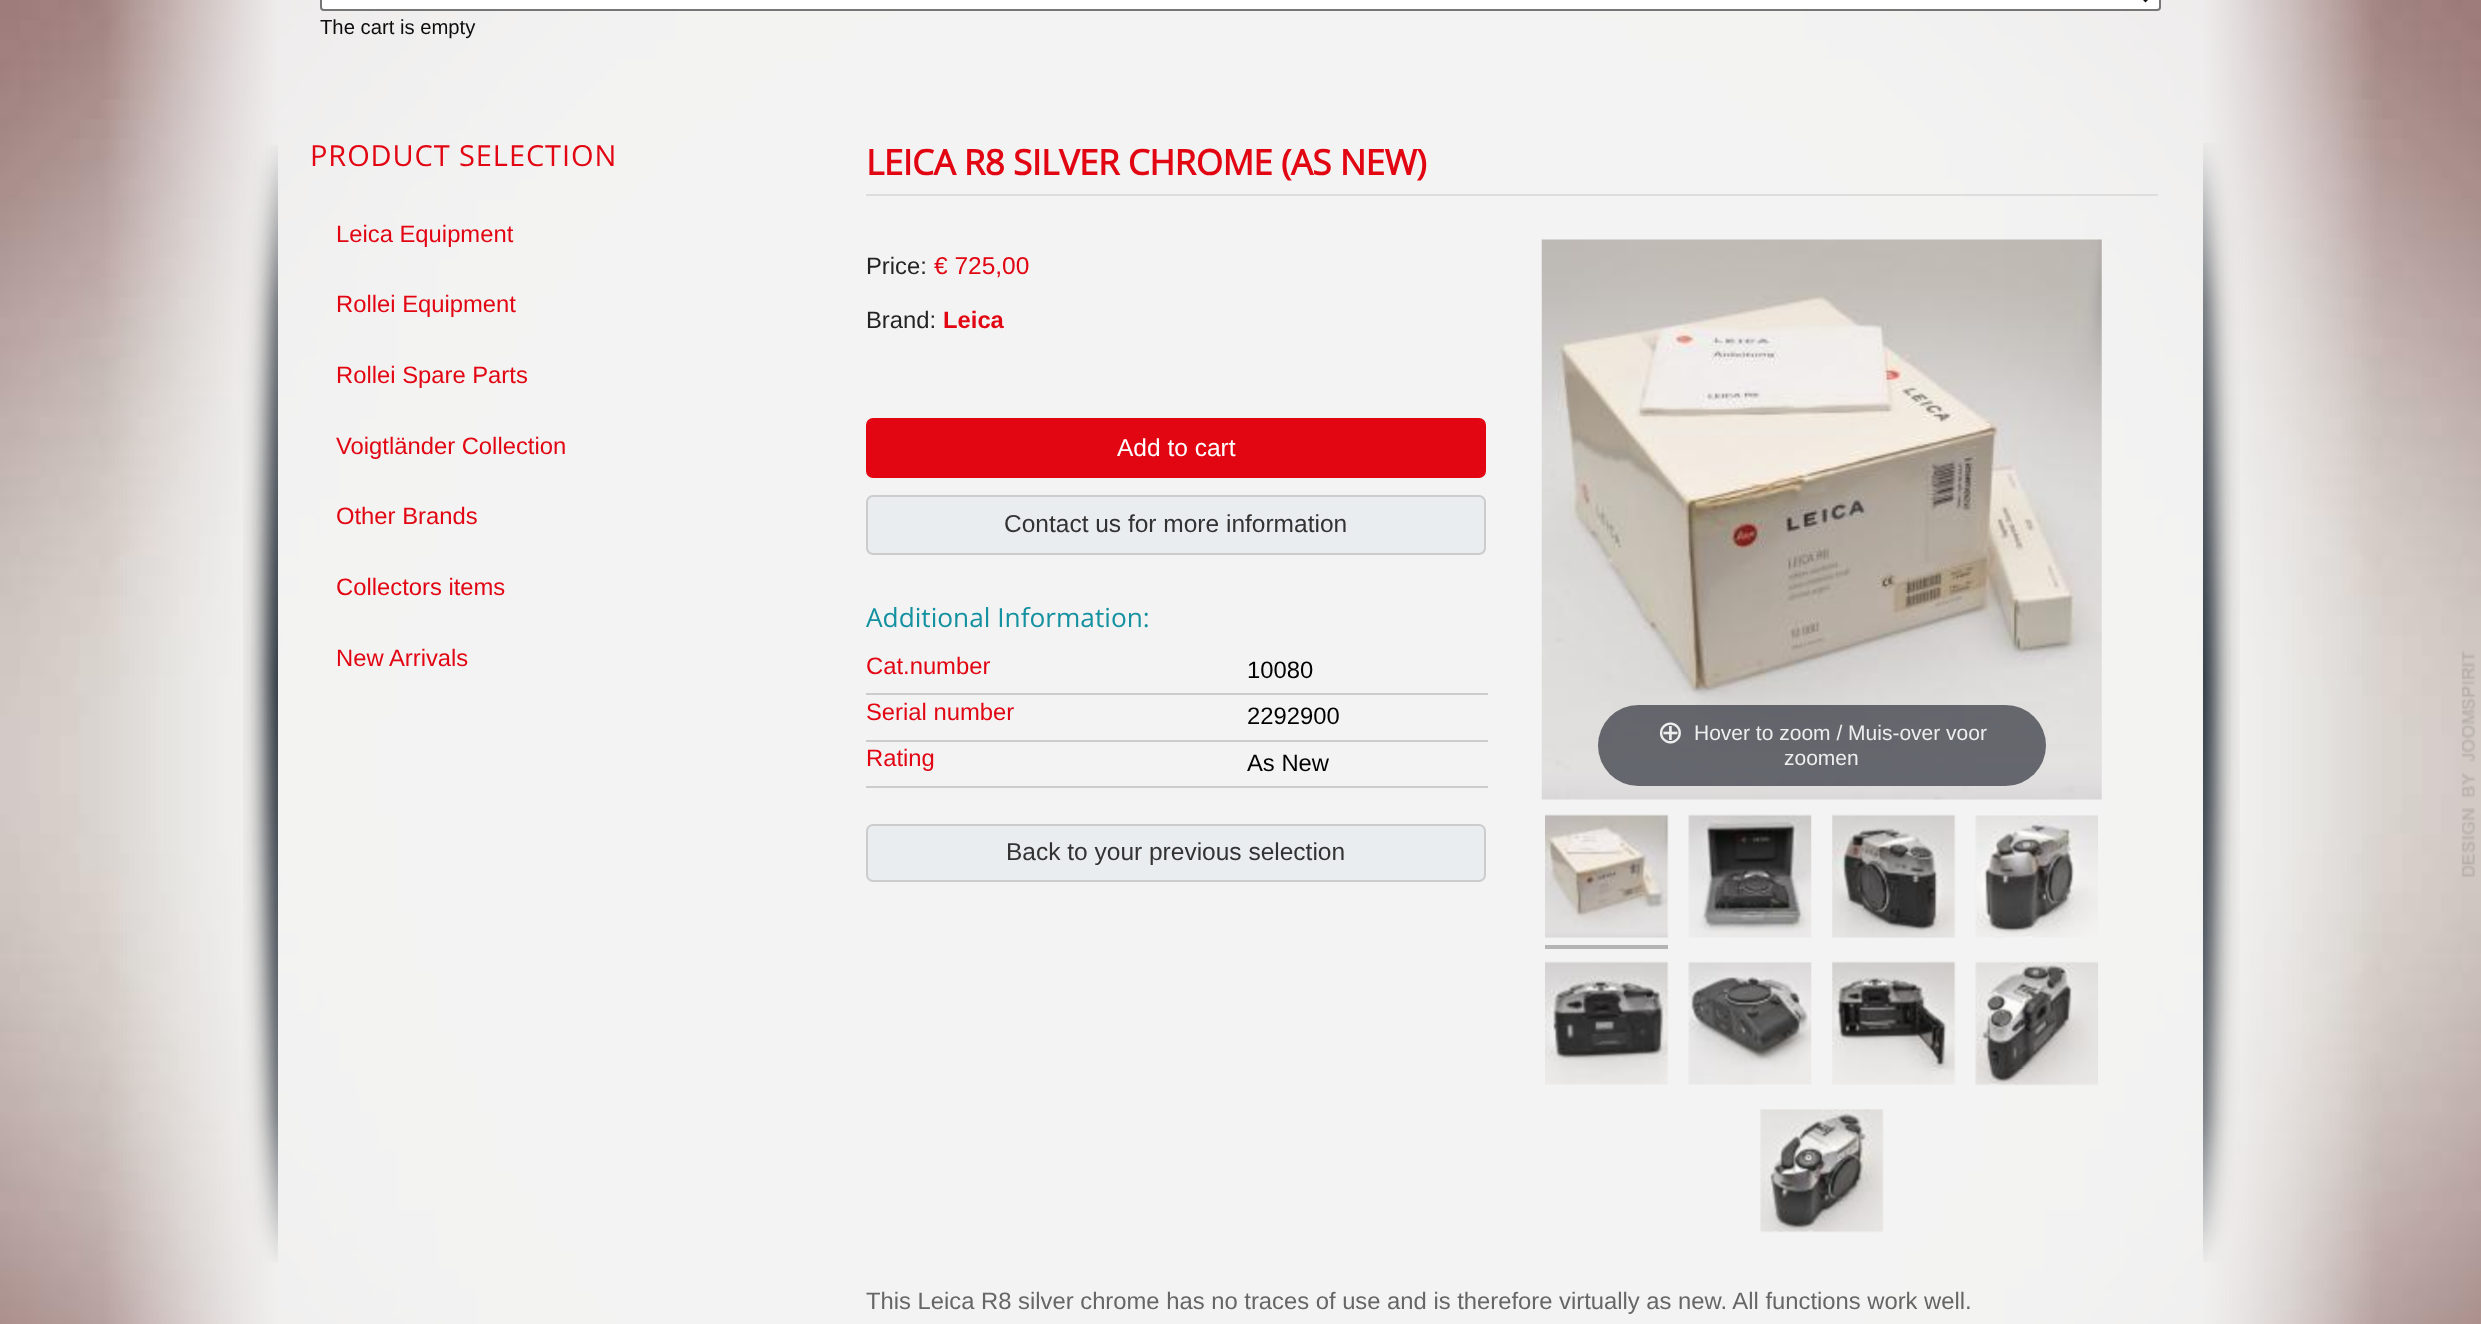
<svg xmlns="http://www.w3.org/2000/svg" width="2481" height="1324" viewBox="0 0 2481 1324">
  <rect width="100%" height="100%" fill="#fff"/>
  <image x="0" y="0" width="2481" height="1324" href="img/1.png"/>
  <path d="M278 0h1925v1324H278z" fill="#f4f4f4e6"/>
  <rect x="321" y="-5" width="1839" height="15" rx="3" fill="#fff" stroke="#767676" stroke-width="2"/>
  <path d="M2138.5-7L2145.5 0L2152.5-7" fill="none" stroke="#0d0d0d" stroke-width="3.5"/>
  <path d="M866 194h1292v2H866z" fill="#ddd"/>
  <rect x="867" y="419" width="618" height="58" rx="6" fill="#e20613" stroke="#e20613" stroke-width="2"/>
  <rect x="867" y="496" width="618" height="58" rx="6" fill="#eaedf0" stroke="#ccc" stroke-width="2"/>
  <path d="M866 693h622v2H866z" fill="#ccc"/>
  <path d="M866 740h622v2H866z" fill="#ccc"/>
  <path d="M866 786h622v2H866z" fill="#ccc"/>
  <rect x="867" y="825" width="618" height="56" rx="6" fill="#eaedf0" stroke="#ccc" stroke-width="2"/>
  <image x="1541" y="239" width="561" height="561" href="img/2.png"/>
  <rect x="1598" y="705" width="448" height="81" rx="40.5" fill="#31333db3"/>
  <image x="1545" y="814" width="124" height="124" href="img/3.png"/>
  <path d="M1545 945h123v4H1545z" fill="#b4b4b4"/>
  <image x="1688" y="814" width="124" height="124" href="img/4.png"/>
  <image x="1832" y="814" width="124" height="124" href="img/5.png"/>
  <image x="1975" y="815" width="123" height="123" href="img/6.png"/>
  <image x="1545" y="961" width="124" height="124" href="img/7.png"/>
  <image x="1688" y="962" width="124" height="123" href="img/8.png"/>
  <image x="1832" y="961" width="124" height="124" href="img/9.png"/>
  <image x="1975" y="961" width="123" height="125" href="img/10.png"/>
  <image x="1760" y="1109" width="124" height="124" href="img/11.png"/>
  <image x="243" y="145" width="35" height="1117" href="img/12.png"/>
  <image x="2203" y="143" width="37" height="1119" href="img/13.png"/>
  <image x="2462" y="651" width="14" height="226" href="img/14.png"/>
  <text x="320" y="34" font-family="Liberation Sans" font-size="20.25" fill="#0d0d0d">The cart is empty</text>
  <text x="310" y="166" font-family="Open Sans" font-size="29" letter-spacing="0.9" fill="#e20613">PRODUCT SELECTION</text>
  <g font-family="Liberation Sans" font-size="23.8" fill="#e20613">
    <text x="336" y="242">Leica Equipment</text>
    <text x="336" y="312">Rollei Equipment</text>
    <text x="336" y="383">Rollei Spare Parts</text>
    <text x="336" y="454">Voigtländer Collection</text>
    <text x="336" y="524">Other Brands</text>
    <text x="336" y="595">Collectors items</text>
    <text x="336" y="666">New Arrivals</text>
  </g>
  <text x="866" y="175" font-family="Open Sans" font-size="35" font-weight="bold" letter-spacing="-0.5" fill="#e20613">LEICA R8 SILVER CHROME (AS NEW)</text>
  <text x="866" y="274" font-family="Liberation Sans" font-size="23.8" fill="#242424">Price:</text>
  <text x="934" y="274" font-family="Liberation Sans" font-size="24.5" fill="#e20613">€ 725,00</text>
  <text x="943" y="328" font-family="Liberation Sans" font-size="23.8" font-weight="bold" fill="#e20613">Leica</text>
  <text x="1117" y="456" font-family="Liberation Sans" font-size="24.5" fill="#fff">Add to cart</text>
  <text x="1004" y="532" font-family="Liberation Sans" font-size="24.5" fill="#333">Contact us for more information</text>
  <text x="866" y="627" font-family="Open Sans" font-size="26.25" fill="#1491a0">Additional Information:</text>
  <text x="866" y="674" font-family="Liberation Sans" font-size="23.8" fill="#e20613">Cat.number</text>
  <text x="1247" y="678" font-family="Liberation Sans" font-size="23.8" fill="#000">10080</text>
  <text x="866" y="720" font-family="Liberation Sans" font-size="23.8" fill="#e20613">Serial number</text>
  <text x="1247" y="724" font-family="Liberation Sans" font-size="23.8" fill="#000">2292900</text>
  <text x="866" y="766" font-family="Liberation Sans" font-size="23.8" fill="#e20613">Rating</text>
  <text x="1247" y="771" font-family="Liberation Sans" font-size="23.8" fill="#000">As New</text>
  <text x="1006" y="860" font-family="Liberation Sans" font-size="24.5" fill="#333">Back to your previous selection</text>
  <text x="866" y="328" font-family="Liberation Sans" font-size="23.8" fill="#242424">Brand:</text>
  <text x="1657" y="743" font-family="DejaVu Sans" font-size="32" fill="#eee">⊕</text>
  <g font-family="Liberation Sans" font-size="21" fill="#eee">
    <text x="1694" y="740">Hover to zoom / Muis-over voor</text>
    <text x="1784" y="765">zoomen</text>
  </g>
  <text x="866" y="1309" font-family="Liberation Sans" font-size="23.8" fill="#666">This Leica R8 silver chrome has no traces of use and is therefore virtually as new. All functions work well.</text>
</svg>
